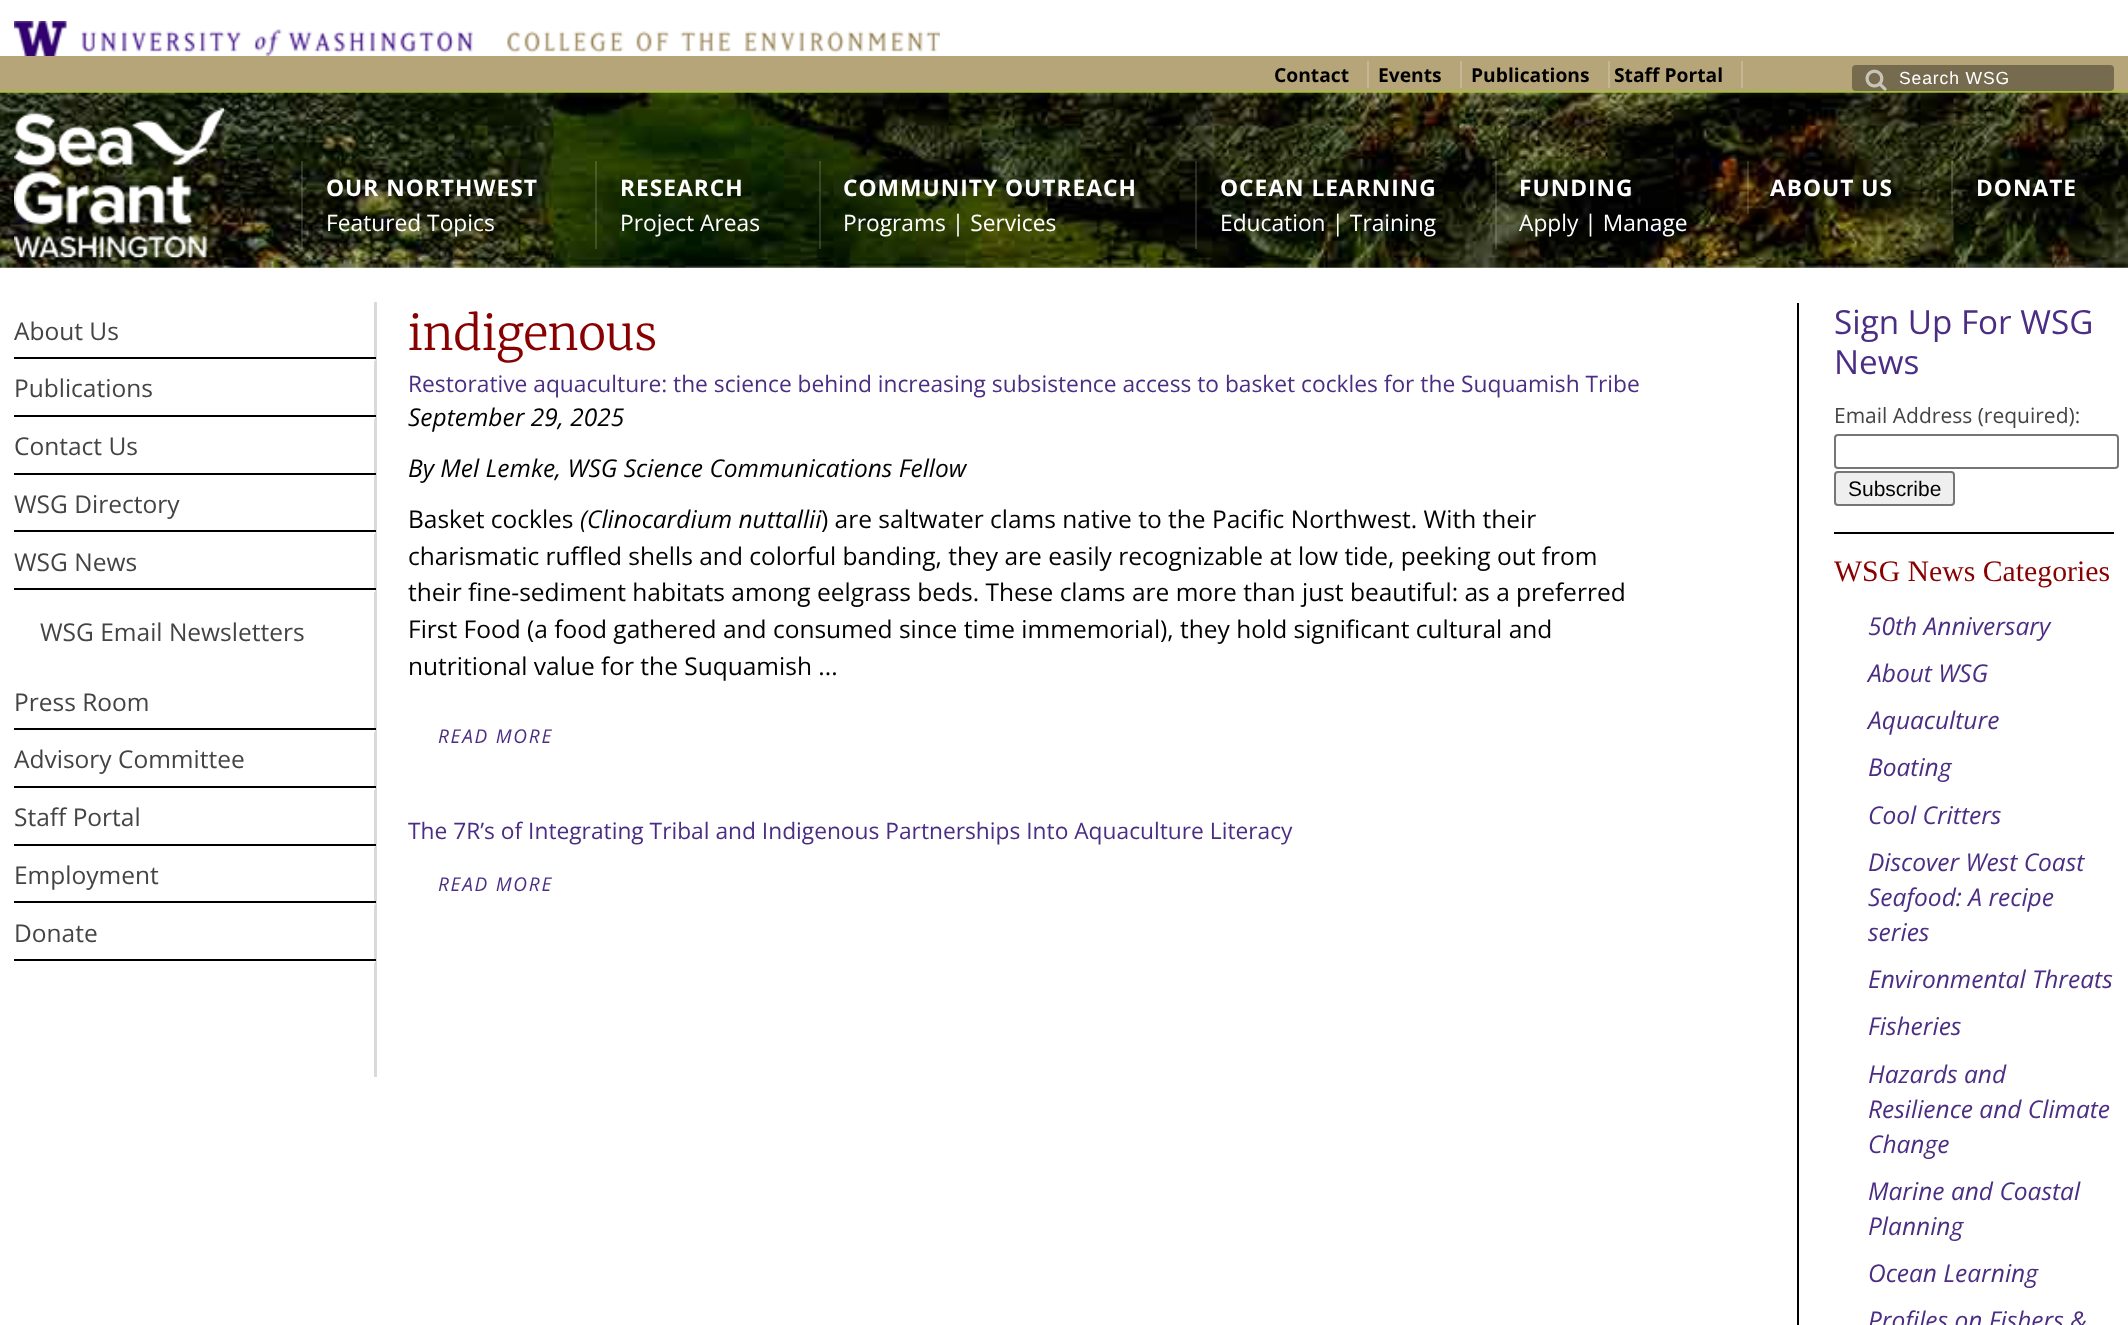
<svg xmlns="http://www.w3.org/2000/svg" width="2128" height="1325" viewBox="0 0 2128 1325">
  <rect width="100%" height="100%" fill="#fff"/>
  <image x="14" y="21" width="459" height="35" href="img/1.png"/>
  <image x="507" y="31" width="433" height="22" href="img/2.png"/>
  <path d="M0 56h2128v35H0z" fill="#b7a57a"/>
  <path d="M1367 61h2v27H1367z" fill="#c5b795"/>
  <path d="M1460 61h2v27H1460z" fill="#c5b795"/>
  <path d="M1608 61h2v27H1608z" fill="#c5b795"/>
  <path d="M1741 61h2v27H1741z" fill="#c5b795"/>
  <rect x="1852" y="65" width="262" height="26" rx="4" fill="#776b4f"/>
  <image x="1865" y="69" width="22" height="22" href="img/3.png"/>
  <path d="M0 91h2128v2H0z" fill="#a3c232"/>
  <image x="0" y="92" width="2128" height="176" href="img/4.png"/>
  <image x="14" y="108" width="210" height="150" href="img/5.png"/>
  <path d="M301 161h2v88H301z" fill="#ffffff26"/>
  <path d="M595 161h2v88H595z" fill="#ffffff26"/>
  <path d="M819 161h2v88H819z" fill="#ffffff26"/>
  <path d="M1195 161h2v88H1195z" fill="#ffffff26"/>
  <path d="M1495 161h2v88H1495z" fill="#ffffff26"/>
  <path d="M1747 161h2v53H1747z" fill="#ffffff26"/>
  <path d="M1951 161h2v53H1951z" fill="#ffffff26"/>
  <path d="M374 302h3v775H374z" fill="#dadada"/>
  <path d="M374 359h1v2H374z" fill="#fff"/>
  <path d="M14 357h362v2H14z" fill="#000"/>
  <path d="M374 417h1v2H374z" fill="#fff"/>
  <path d="M14 415h362v2H14z" fill="#000"/>
  <path d="M374 475h1v1H374z" fill="#fff"/>
  <path d="M14 473h362v2H14z" fill="#000"/>
  <path d="M374 532h1v2H374z" fill="#fff"/>
  <path d="M14 530h362v2H14z" fill="#000"/>
  <path d="M374 590h1v2H374z" fill="#fff"/>
  <path d="M14 588h362v2H14z" fill="#000"/>
  <path d="M374 730h1v2H374z" fill="#fff"/>
  <path d="M14 728h362v2H14z" fill="#000"/>
  <path d="M374 788h1v2H374z" fill="#fff"/>
  <path d="M14 786h362v2H14z" fill="#000"/>
  <path d="M374 846h1v1H374z" fill="#fff"/>
  <path d="M14 844h362v2H14z" fill="#000"/>
  <path d="M374 903h1v2H374z" fill="#fff"/>
  <path d="M14 901h362v2H14z" fill="#000"/>
  <path d="M374 961h1v2H374z" fill="#fff"/>
  <path d="M14 959h362v2H14z" fill="#000"/>
  <path d="M1797 303h2v1022H1797z" fill="#000"/>
  <rect x="1835" y="435" width="283" height="33" rx="3" fill="none" stroke="#767676" stroke-width="2"/>
  <rect x="1835" y="472" width="119" height="33" rx="3" fill="#efefef" stroke="#767676" stroke-width="2"/>
  <path d="M1834 532h280v2H1834z" fill="#000"/>
  <g font-family="Open Sans" font-size="19.25" font-weight="bold" fill="#000">
    <text x="1274" y="82">Contact</text>
    <text x="1378" y="82">Events</text>
    <text x="1471" y="82">Publications</text>
    <text x="1614" y="82">Staff Portal</text>
  </g>
  <text x="1899" y="84" font-family="Liberation Sans" font-size="17.5" letter-spacing="0.9" fill="#fff">Search WSG</text>
  <text x="326" y="196" font-family="Open Sans" font-size="22.75" font-weight="bold" letter-spacing="1" fill="#fff">OUR NORTHWEST</text>
  <text x="326" y="231" font-family="Open Sans" font-size="22.75" fill="#fff">Featured Topics</text>
  <text x="620" y="196" font-family="Open Sans" font-size="22.75" font-weight="bold" letter-spacing="1" fill="#fff">RESEARCH</text>
  <text x="620" y="231" font-family="Open Sans" font-size="22.75" fill="#fff">Project Areas</text>
  <text x="843" y="196" font-family="Open Sans" font-size="22.75" font-weight="bold" letter-spacing="1" fill="#fff">COMMUNITY OUTREACH</text>
  <text x="843" y="231" font-family="Open Sans" font-size="22.75" fill="#fff">Programs | Services</text>
  <text x="1220" y="196" font-family="Open Sans" font-size="22.75" font-weight="bold" letter-spacing="1" fill="#fff">OCEAN LEARNING</text>
  <text x="1220" y="231" font-family="Open Sans" font-size="22.75" fill="#fff">Education | Training</text>
  <text x="1519" y="196" font-family="Open Sans" font-size="22.75" font-weight="bold" letter-spacing="1" fill="#fff">FUNDING</text>
  <text x="1519" y="231" font-family="Open Sans" font-size="22.75" fill="#fff">Apply | Manage</text>
  <g font-family="Open Sans" font-size="22.75" font-weight="bold" letter-spacing="1" fill="#fff">
    <text x="1770" y="196">ABOUT US</text>
    <text x="1976" y="196">DONATE</text>
  </g>
  <g font-family="Open Sans" font-size="24.5" fill="#444">
    <text x="14" y="340">About Us</text>
    <text x="14" y="397">Publications</text>
    <text x="14" y="455">Contact Us</text>
    <text x="14" y="513">WSG Directory</text>
    <text x="14" y="571">WSG News</text>
    <text x="40" y="641">WSG Email Newsletters</text>
    <text x="14" y="711">Press Room</text>
    <text x="14" y="768">Advisory Committee</text>
    <text x="14" y="826">Staff Portal</text>
    <text x="14" y="884">Employment</text>
    <text x="14" y="942">Donate</text>
  </g>
  <text x="408" y="350" font-family="Merriweather" font-size="47.25" font-weight="300" fill="#800">indigenous</text>
  <text x="408" y="392" font-family="Open Sans" font-size="22.75" fill="#4b2e83">Restorative aquaculture: the science behind increasing subsistence access to basket cockles for the Suquamish Tribe</text>
  <g font-family="Open Sans" font-size="24.5" font-style="italic" fill="#000">
    <text x="408" y="426">September 29, 2025</text>
    <text x="408" y="477">By Mel Lemke, WSG Science Communications Fellow</text>
  </g>
  <text x="408" y="528" font-family="Open Sans" font-size="24.5" fill="#000">Basket cockles</text>
  <text x="580" y="528" font-family="Open Sans" font-size="24.5" font-style="italic" fill="#000">(Clinocardium nuttallii</text>
  <g font-family="Open Sans" font-size="24.5" fill="#000">
    <text x="821" y="528">) are saltwater clams native to the Pacific Northwest. With their</text>
    <text x="408" y="565">charismatic ruffled shells and colorful banding, they are easily recognizable at low tide, peeking out from</text>
    <text x="408" y="601">their fine-sediment habitats among eelgrass beds. These clams are more than just beautiful: as a preferred</text>
    <text x="408" y="638">First Food (a food gathered and consumed since time immemorial), they hold significant cultural and</text>
    <text x="408" y="675">nutritional value for the Suquamish ...</text>
  </g>
  <text x="438" y="743" font-family="Open Sans" font-size="19" font-style="italic" letter-spacing="1.75" fill="#4b2e83">READ MORE</text>
  <text x="408" y="839" font-family="Open Sans" font-size="22.75" fill="#4b2e83">The 7R’s of Integrating Tribal and Indigenous Partnerships Into Aquaculture Literacy</text>
  <text x="438" y="891" font-family="Open Sans" font-size="19" font-style="italic" letter-spacing="1.75" fill="#4b2e83">READ MORE</text>
  <g font-family="Open Sans" font-size="33.25" fill="#4b2e83">
    <text x="1834" y="334">Sign Up For WSG</text>
    <text x="1834" y="374">News</text>
  </g>
  <text x="1834" y="423" font-family="Open Sans" font-size="21" fill="#444">Email Address (required):</text>
  <text x="1848" y="496" font-family="Liberation Sans" font-size="21" fill="#000">Subscribe</text>
  <text x="1834" y="581" font-family="Liberation Serif" font-size="29.75" fill="#800">WSG News Categories</text>
  <g font-family="Open Sans" font-size="24.5" font-style="italic" fill="#4b2e83">
    <text x="1868" y="635">50th Anniversary</text>
    <text x="1868" y="682">About WSG</text>
    <text x="1868" y="729">Aquaculture</text>
    <text x="1868" y="776">Boating</text>
    <text x="1868" y="824">Cool Critters</text>
    <text x="1868" y="871">Discover West Coast</text>
    <text x="1868" y="906">Seafood: A recipe</text>
    <text x="1868" y="941">series</text>
    <text x="1868" y="988">Environmental Threats</text>
    <text x="1868" y="1035">Fisheries</text>
    <text x="1868" y="1083">Hazards and</text>
    <text x="1868" y="1118">Resilience and Climate</text>
    <text x="1868" y="1153">Change</text>
    <text x="1868" y="1200">Marine and Coastal</text>
    <text x="1868" y="1235">Planning</text>
    <text x="1868" y="1282">Ocean Learning</text>
    <text x="1868" y="1329">Profiles on Fishers &amp;</text>
  </g>
</svg>
